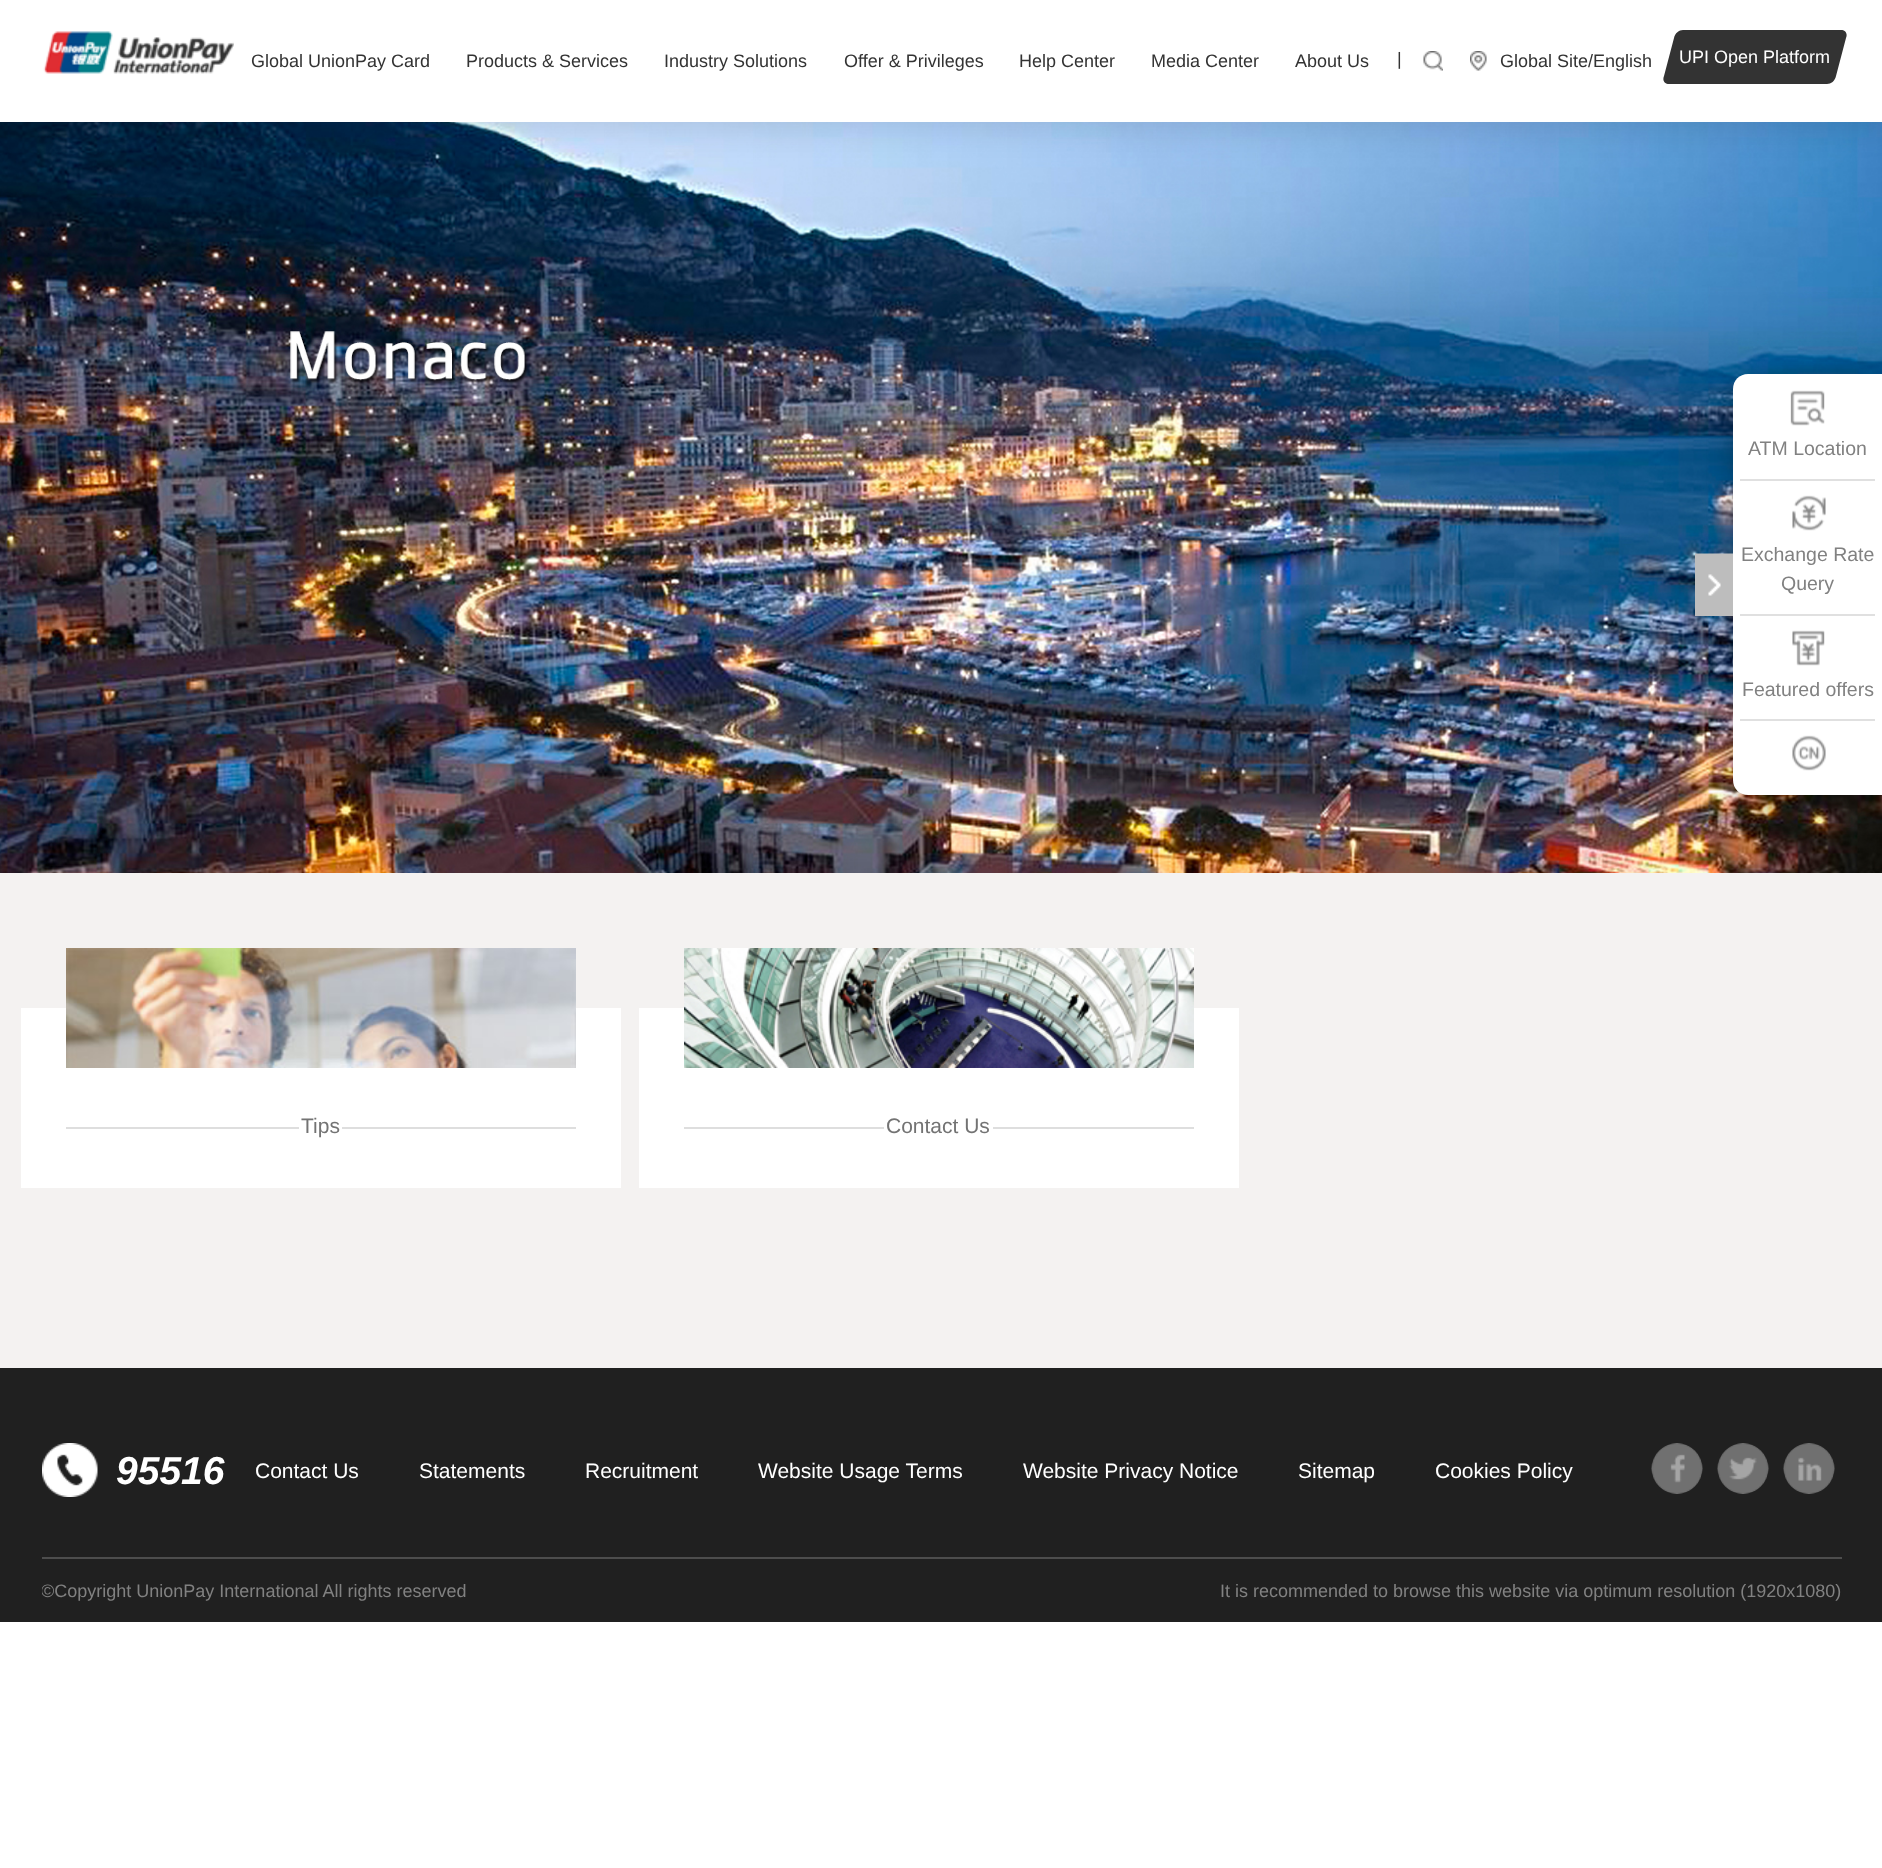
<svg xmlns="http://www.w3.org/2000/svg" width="1882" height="1868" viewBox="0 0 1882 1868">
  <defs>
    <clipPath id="clip1"><path d="M42 1559h1800v63H42z"/></clipPath>
  </defs>
  <rect width="100%" height="100%" fill="#fff"/>
  <image x="0" y="122" width="1882" height="751" href="img/4.png"/>
  <path d="M8 8h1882v121H8z" fill="#0000001a" filter="blur(15px)"/>
  <path d="M0 0h1882v122H0z" fill="#fff"/>
  <image x="43" y="31" width="191" height="43" href="img/1.png"/>
  <image x="1423" y="51" width="20" height="20" href="img/2.png"/>
  <image x="1470" y="51" width="17" height="20" href="img/3.png"/>
  <path d="M1683 30H1841C1845 30 1848 33 1846 38L1836 76C1835 81 1831 84 1827 84H1669C1665 84 1662 81 1664 76L1674 38C1675 33 1679 30 1683 30Z" fill="#333"/>
  <rect x="1740" y="381" width="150" height="422" rx="15" fill="#00000066" filter="blur(15px)"/>
  <path d="M1748 374H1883V795H1748C1739.5 795 1733 788.5 1733 780V389C1733 380.5 1739.5 374 1748 374Z" fill="#fff"/>
  <image x="1695" y="553" width="38" height="63" href="img/5.png"/>
  <path d="M1740 479h135v2H1740z" fill="#e0e0e0"/>
  <image x="1790" y="390" width="35" height="36" href="img/6.png"/>
  <path d="M1740 614h135v2H1740z" fill="#e0e0e0"/>
  <image x="1792" y="495" width="34" height="36" href="img/7.png"/>
  <path d="M1740 719h135v2H1740z" fill="#e0e0e0"/>
  <image x="1792" y="630" width="33" height="36" href="img/8.png"/>
  <image x="1792" y="735" width="34" height="36" href="img/9.png"/>
  <path d="M0 873h1882v495H0z" fill="#f4f2f1"/>
  <path d="M21 1008h600v180H21z" fill="#fff"/>
  <image x="66" y="948" width="510" height="120" href="img/10.png"/>
  <path d="M66 1127h510v2H66z" fill="#dedede"/>
  <path d="M299 1127h43v2H299z" fill="#fff"/>
  <path d="M639 1008h600v180H639z" fill="#fff"/>
  <image x="684" y="948" width="510" height="120" href="img/11.png"/>
  <path d="M684 1127h510v2H684z" fill="#dedede"/>
  <path d="M884 1127h109v2H884z" fill="#fff"/>
  <path d="M0 1368h1882v254H0z" fill="#202020"/>
  <path d="M42 1557h1800v2H42z" fill="#4d4d4d"/>
  <image x="42" y="1443" width="56" height="54" href="img/12.png"/>
  <image x="1651" y="1443" width="52" height="51" href="img/13.png"/>
  <image x="1717" y="1443" width="52" height="51" href="img/14.png"/>
  <image x="1783" y="1443" width="52" height="51" href="img/15.png"/>
  <g font-family="Liberation Sans" font-size="18" fill="#333">
    <text x="251" y="67">Global UnionPay Card</text>
    <text x="466" y="67">Products &amp; Services</text>
    <text x="664" y="67">Industry Solutions</text>
    <text x="844" y="67">Offer &amp; Privileges</text>
    <text x="1019" y="67">Help Center</text>
    <text x="1151" y="67">Media Center</text>
    <text x="1295" y="67">About Us</text>
    <text x="1397" y="65">|</text>
    <text x="1500" y="67">Global Site/English</text>
  </g>
  <text x="1679" y="63" font-family="Liberation Sans" font-size="18" fill="#fff">UPI Open Platform</text>
  <g font-family="Liberation Sans" font-size="19.5" fill="#818181">
    <text x="1748" y="455">ATM Location</text>
    <text x="1741" y="561">Exchange Rate</text>
    <text x="1781" y="590">Query</text>
    <text x="1742" y="696">Featured offers</text>
  </g>
  <g font-family="Liberation Sans" font-size="21" fill="#737373">
    <text x="301" y="1133">Tips</text>
    <text x="886" y="1133">Contact Us</text>
  </g>
  <text x="116" y="1484" font-family="Liberation Sans" font-size="39" font-weight="bold" font-style="italic" fill="#fff">95516</text>
  <g font-family="Liberation Sans" font-size="21" fill="#fff">
    <text x="255" y="1478">Contact Us</text>
    <text x="419" y="1478">Statements</text>
    <text x="585" y="1478">Recruitment</text>
    <text x="758" y="1478">Website Usage Terms</text>
    <text x="1023" y="1478">Website Privacy Notice</text>
    <text x="1298" y="1478">Sitemap</text>
    <text x="1435" y="1478">Cookies Policy</text>
  </g>
  <g clip-path="url(#clip1)">
    <text x="41" y="1597" font-family="Liberation Sans" font-size="18" fill="#818181">©Copyright UnionPay International All rights reserved</text>
  </g>
  <text x="1220" y="1597" font-family="Liberation Sans" font-size="18" fill="#818181">It is recommended to browse this website via optimum resolution (1920x1080)</text>
</svg>
